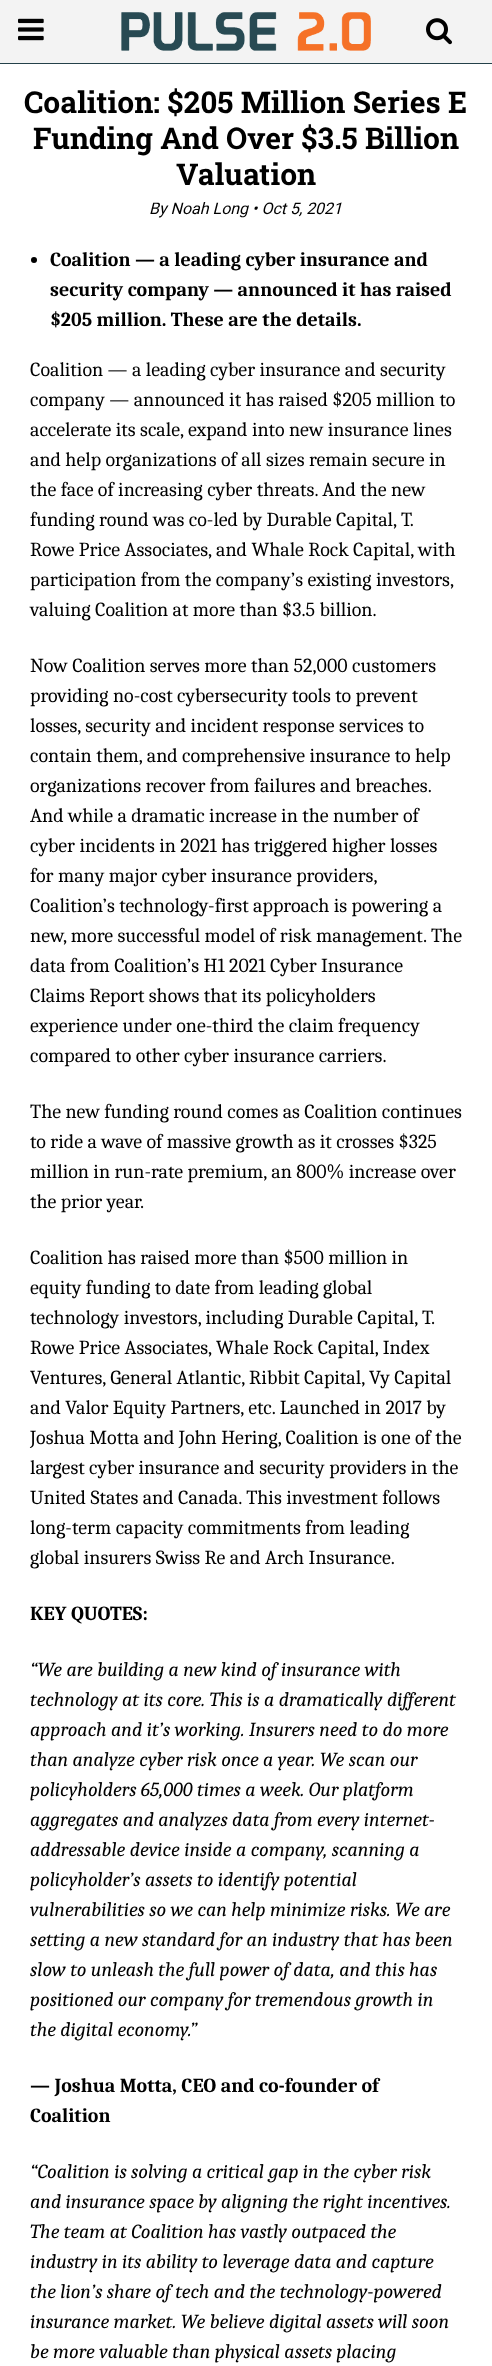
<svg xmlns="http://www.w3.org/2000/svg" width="492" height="2366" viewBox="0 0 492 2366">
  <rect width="100%" height="100%" fill="#fff"/>
  <path d="M0 0h492v63H0z" fill="#f3f3f3"/>
  <path d="M0 63h492v1H0z" fill="#244149"/>
  <image x="18" y="18" width="26" height="23" href="img/1.png"/>
  <image x="121" y="12" width="250" height="39" href="img/2.png"/>
  <image x="426" y="18" width="26" height="27" href="img/3.png"/>
  <circle cx="34" cy="260" r="3" fill="#000"/>
  <g font-family="Roboto Slab" font-size="30" font-weight="bold" fill="#000">
    <text x="24" y="113">Coalition: $205 Million Series E</text>
    <text x="33" y="149">Funding And Over $3.5 Billion</text>
    <text x="176" y="185">Valuation</text>
  </g>
  <text x="149" y="214" font-family="Roboto" font-size="16" font-style="italic" fill="#000">By Noah Long • Oct 5, 2021</text>
  <g font-family="Caladea" font-size="20" font-weight="bold" fill="#000">
    <text x="50" y="266">Coalition — a leading cyber insurance and</text>
    <text x="50" y="296">security company — announced it has raised</text>
    <text x="50" y="326">$205 million. These are the details.</text>
  </g>
  <g font-family="Caladea" font-size="20" fill="#000">
    <text x="30" y="376">Coalition — a leading cyber insurance and security</text>
    <text x="30" y="406">company — announced it has raised $205 million to</text>
    <text x="30" y="436">accelerate its scale, expand into new insurance lines</text>
    <text x="30" y="466">and help organizations of all sizes remain secure in</text>
    <text x="30" y="496">the face of increasing cyber threats. And the new</text>
    <text x="30" y="526">funding round was co-led by Durable Capital, T.</text>
    <text x="30" y="556">Rowe Price Associates, and Whale Rock Capital, with</text>
    <text x="30" y="586">participation from the company’s existing investors,</text>
    <text x="30" y="616">valuing Coalition at more than $3.5 billion.</text>
    <text x="30" y="672">Now Coalition serves more than 52,000 customers</text>
    <text x="30" y="702">providing no-cost cybersecurity tools to prevent</text>
    <text x="30" y="732">losses, security and incident response services to</text>
    <text x="30" y="762">contain them, and comprehensive insurance to help</text>
    <text x="30" y="792">organizations recover from failures and breaches.</text>
    <text x="30" y="822">And while a dramatic increase in the number of</text>
    <text x="30" y="852">cyber incidents in 2021 has triggered higher losses</text>
    <text x="30" y="882">for many major cyber insurance providers,</text>
    <text x="30" y="912">Coalition’s technology-first approach is powering a</text>
    <text x="30" y="942">new, more successful model of risk management. The</text>
    <text x="30" y="972">data from Coalition’s H1 2021 Cyber Insurance</text>
    <text x="30" y="1002">Claims Report shows that its policyholders</text>
    <text x="30" y="1032">experience under one-third the claim frequency</text>
    <text x="30" y="1062">compared to other cyber insurance carriers.</text>
    <text x="30" y="1118">The new funding round comes as Coalition continues</text>
    <text x="30" y="1148">to ride a wave of massive growth as it crosses $325</text>
    <text x="30" y="1178">million in run-rate premium, an 800% increase over</text>
    <text x="30" y="1208">the prior year.</text>
    <text x="30" y="1264">Coalition has raised more than $500 million in</text>
    <text x="30" y="1294">equity funding to date from leading global</text>
    <text x="30" y="1324">technology investors, including Durable Capital, T.</text>
    <text x="30" y="1354">Rowe Price Associates, Whale Rock Capital, Index</text>
    <text x="30" y="1384">Ventures, General Atlantic, Ribbit Capital, Vy Capital</text>
    <text x="30" y="1414">and Valor Equity Partners, etc. Launched in 2017 by</text>
    <text x="30" y="1444">Joshua Motta and John Hering, Coalition is one of the</text>
    <text x="30" y="1474">largest cyber insurance and security providers in the</text>
    <text x="30" y="1504">United States and Canada. This investment follows</text>
    <text x="30" y="1534">long-term capacity commitments from leading</text>
    <text x="30" y="1564">global insurers Swiss Re and Arch Insurance.</text>
  </g>
  <text x="30" y="1620" font-family="Caladea" font-size="20" font-weight="bold" fill="#000">KEY QUOTES:</text>
  <g font-family="Caladea" font-size="20" font-style="italic" fill="#000">
    <text x="30" y="1676">“We are building a new kind of insurance with</text>
    <text x="30" y="1706">technology at its core. This is a dramatically different</text>
    <text x="30" y="1736">approach and it’s working. Insurers need to do more</text>
    <text x="30" y="1766">than analyze cyber risk once a year. We scan our</text>
    <text x="30" y="1796">policyholders 65,000 times a week. Our platform</text>
    <text x="30" y="1826">aggregates and analyzes data from every internet-</text>
    <text x="30" y="1856">addressable device inside a company, scanning a</text>
    <text x="30" y="1886">policyholder’s assets to identify potential</text>
    <text x="30" y="1916">vulnerabilities so we can help minimize risks. We are</text>
    <text x="30" y="1946">setting a new standard for an industry that has been</text>
    <text x="30" y="1976">slow to unleash the full power of data, and this has</text>
    <text x="30" y="2006">positioned our company for tremendous growth in</text>
    <text x="30" y="2036">the digital economy.”</text>
  </g>
  <g font-family="Caladea" font-size="20" font-weight="bold" fill="#000">
    <text x="30" y="2092">— Joshua Motta, CEO and co-founder of</text>
    <text x="30" y="2122">Coalition</text>
  </g>
  <g font-family="Caladea" font-size="20" font-style="italic" fill="#000">
    <text x="30" y="2178">“Coalition is solving a critical gap in the cyber risk</text>
    <text x="30" y="2208">and insurance space by aligning the right incentives.</text>
    <text x="30" y="2238">The team at Coalition has vastly outpaced the</text>
    <text x="30" y="2268">industry in its ability to leverage data and capture</text>
    <text x="30" y="2298">the lion’s share of tech and the technology-powered</text>
    <text x="30" y="2328">insurance market. We believe digital assets will soon</text>
    <text x="30" y="2358">be more valuable than physical assets placing</text>
  </g>
</svg>
